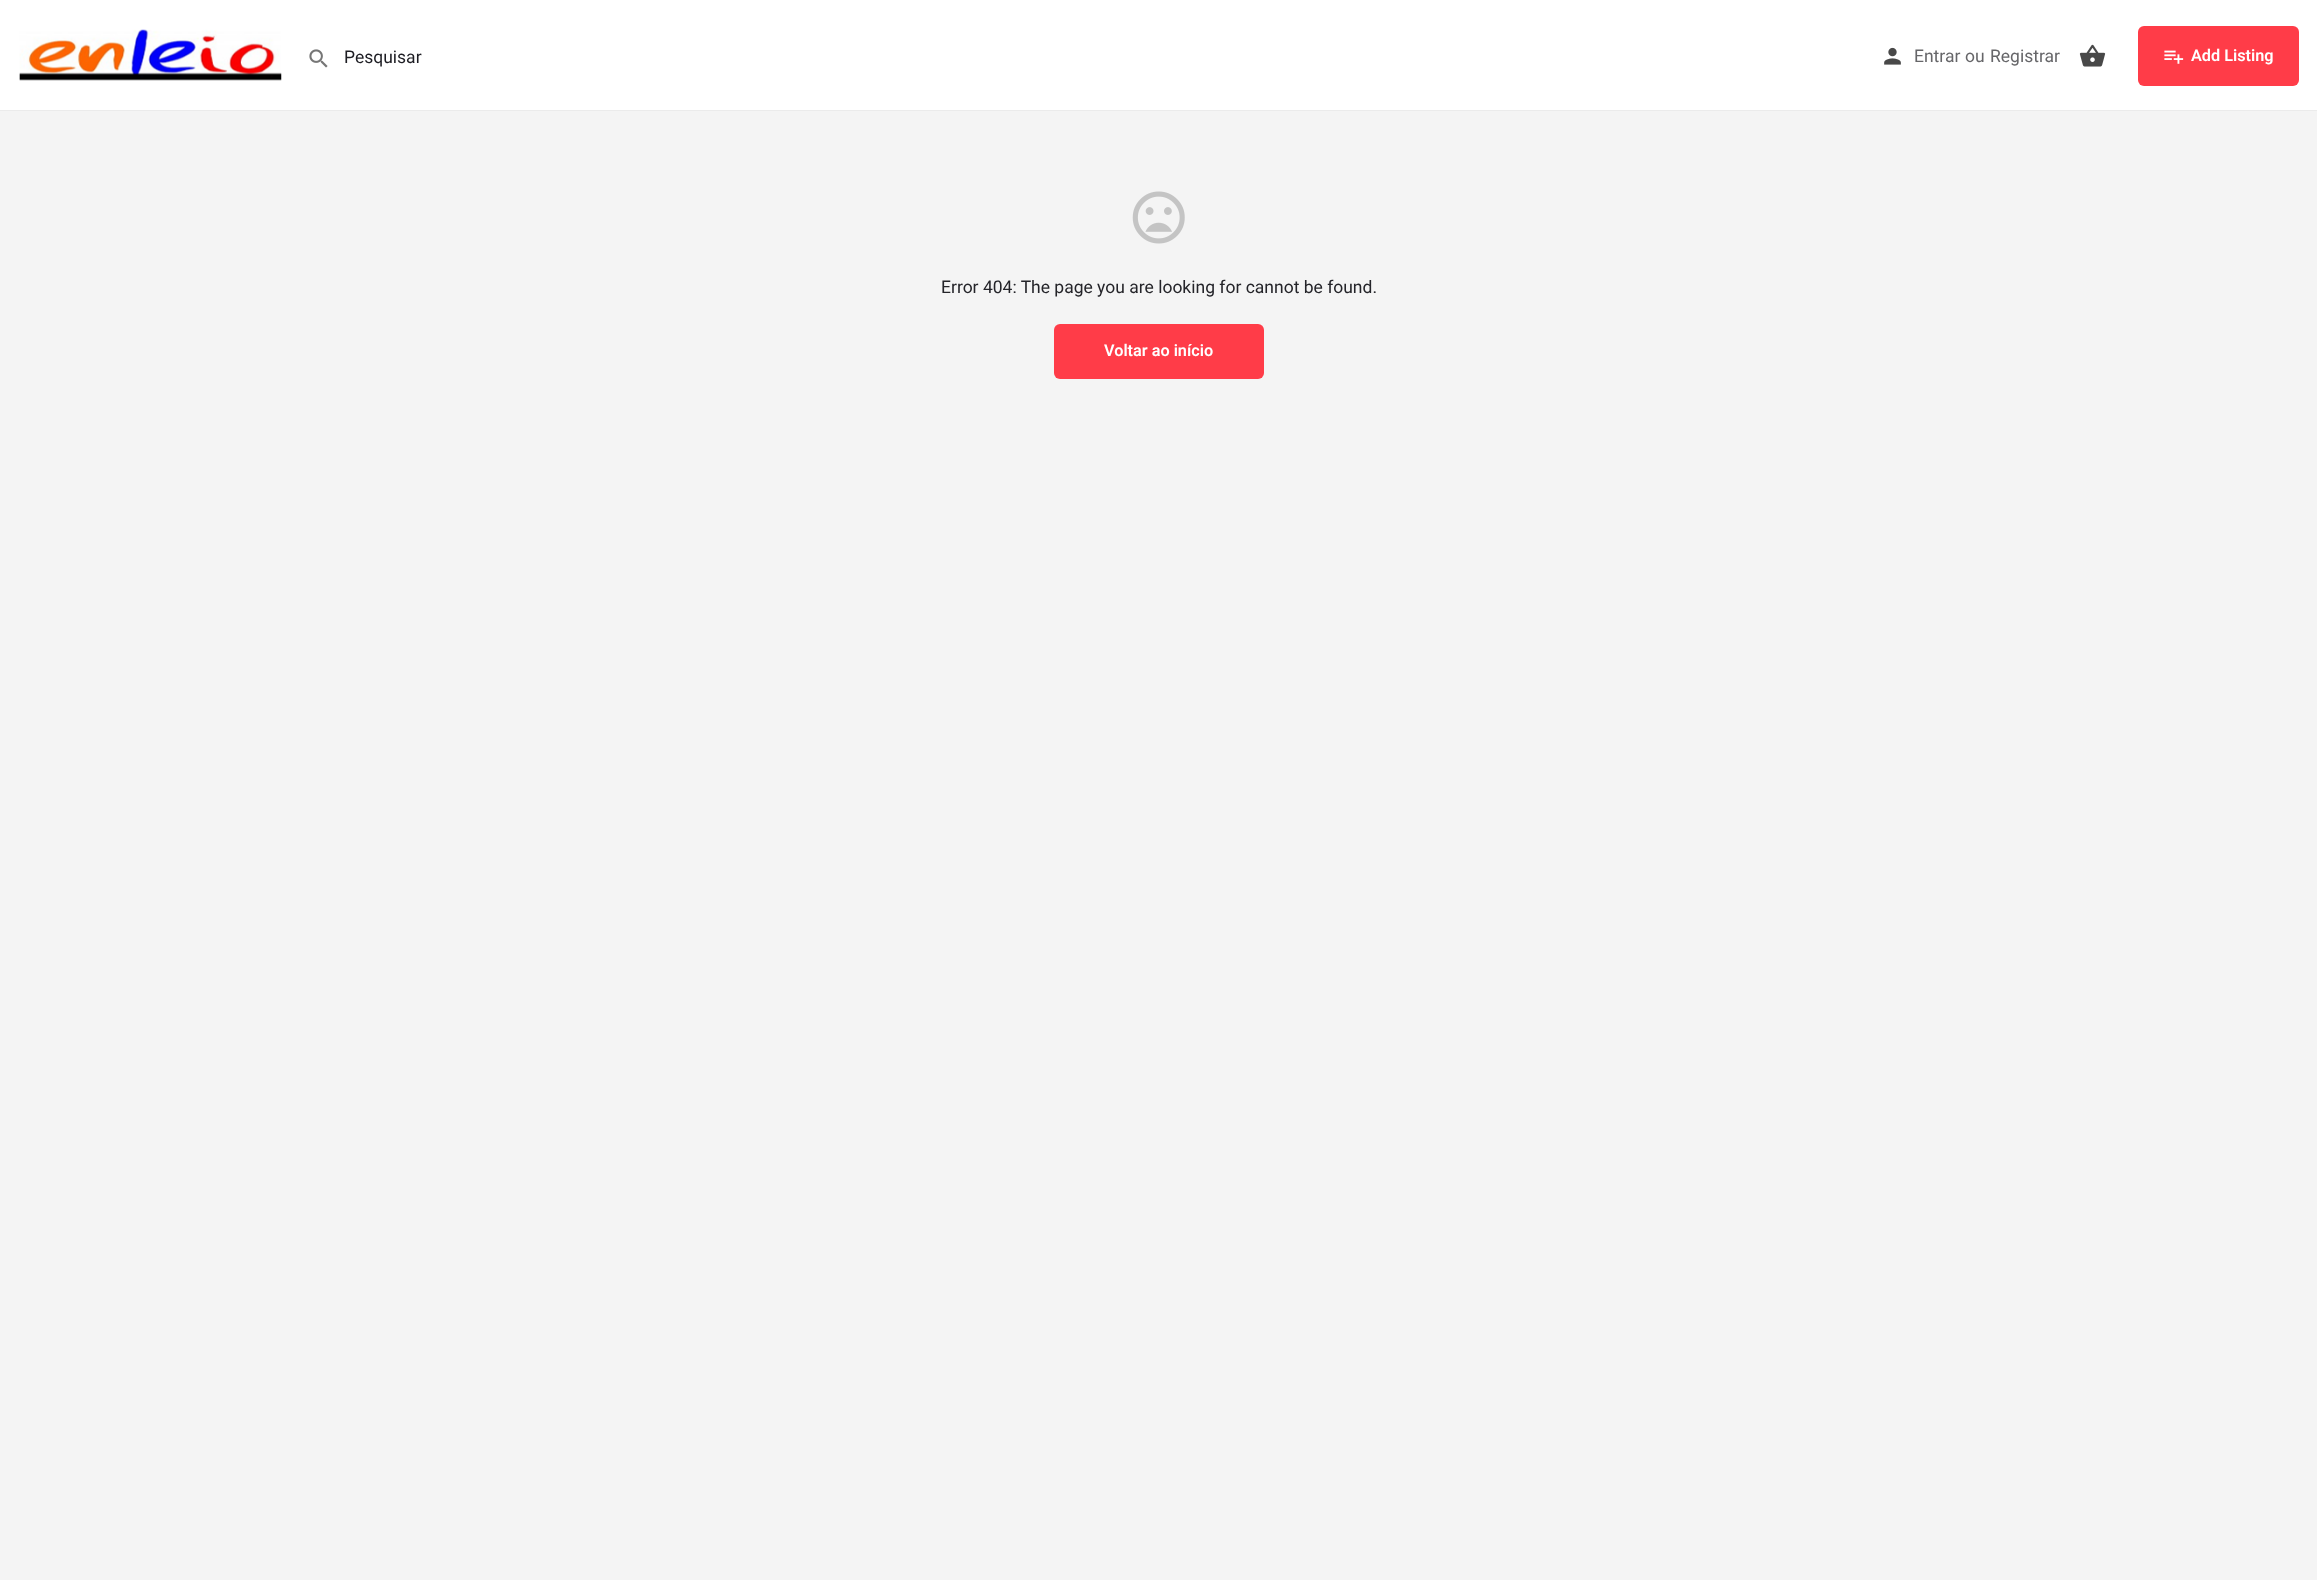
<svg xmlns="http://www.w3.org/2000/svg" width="2317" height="1580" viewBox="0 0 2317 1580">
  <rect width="100%" height="100%" fill="#f4f4f4"/>
  <path d="M0 0h2317v110H0z" fill="#fff"/>
  <path d="M0 110h2317v1H0z" fill="#ebebeb"/>
  <image x="19" y="29" width="263" height="52" href="img/1.png"/>
  <image x="309" y="49" width="19" height="19" href="img/2.png"/>
  <image x="1884" y="47" width="17" height="18" href="img/3.png"/>
  <image x="2079" y="44" width="27" height="23" href="img/4.png"/>
  <rect x="2138" y="26" width="161" height="60" rx="6" fill="#ff3c48"/>
  <image x="2164" y="50" width="20" height="14" href="img/5.png"/>
  <image x="1132" y="191" width="53" height="53" href="img/6.png"/>
  <rect x="1054" y="324" width="210" height="55" rx="6" fill="#ff3c48"/>
  <text x="344" y="63" font-family="Roboto" font-size="17.5" fill="#1d1d23">Pesquisar</text>
  <g font-family="Roboto" font-size="17.5" fill="#666669">
    <text x="1914" y="62">Entrar</text>
    <text x="1965" y="62">ou</text>
    <text x="1990" y="62">Registrar</text>
  </g>
  <text x="2191" y="61" font-family="Roboto" font-size="16.25" font-weight="600" fill="#fff">Add Listing</text>
  <text x="941" y="293" font-family="Roboto" font-size="17.5" fill="#242429">Error 404: The page you are looking for cannot be found.</text>
  <text x="1104" y="356" font-family="Roboto" font-size="16.25" font-weight="600" fill="#fff">Voltar ao início</text>
</svg>
